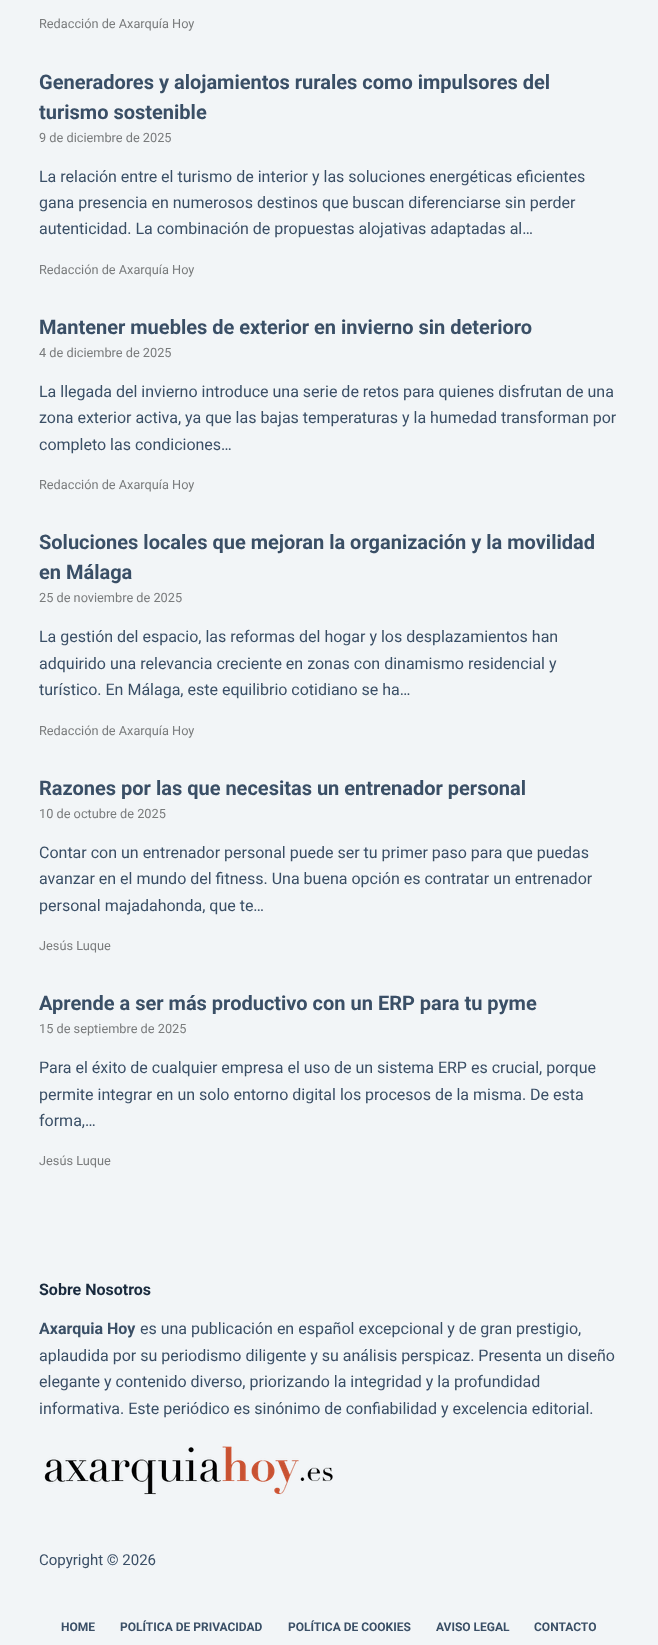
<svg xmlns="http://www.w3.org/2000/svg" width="658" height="1645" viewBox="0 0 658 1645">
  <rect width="100%" height="100%" fill="#f2f5f7"/>
  <image x="44" y="1446" width="289" height="49" href="img/1.png"/>
  <text x="39" y="28" font-family="Roboto" font-size="12.75" fill="#797b7c">Redacción de Axarquía Hoy</text>
  <g font-family="Roboto" font-size="20" font-weight="bold" fill="#3a4f66">
    <text x="39" y="89">Generadores y alojamientos rurales como impulsores del</text>
    <text x="39" y="119">turismo sostenible</text>
  </g>
  <text x="39" y="142" font-family="Roboto" font-size="12.75" fill="#797b7c">9 de diciembre de 2025</text>
  <g font-family="Roboto" font-size="16" fill="#3a4f66">
    <text x="39" y="182">La relación entre el turismo de interior y las soluciones energéticas eficientes</text>
    <text x="39" y="208">gana presencia en numerosos destinos que buscan diferenciarse sin perder</text>
    <text x="39" y="234">autenticidad. La combinación de propuestas alojativas adaptadas al…</text>
  </g>
  <text x="39" y="274" font-family="Roboto" font-size="12.75" fill="#797b7c">Redacción de Axarquía Hoy</text>
  <text x="39" y="334" font-family="Roboto" font-size="20" font-weight="bold" fill="#3a4f66">Mantener muebles de exterior en invierno sin deterioro</text>
  <text x="39" y="357" font-family="Roboto" font-size="12.75" fill="#797b7c">4 de diciembre de 2025</text>
  <g font-family="Roboto" font-size="16" fill="#3a4f66">
    <text x="39" y="397">La llegada del invierno introduce una serie de retos para quienes disfrutan de una</text>
    <text x="39" y="423">zona exterior activa, ya que las bajas temperaturas y la humedad transforman por</text>
    <text x="39" y="450">completo las condiciones…</text>
  </g>
  <text x="39" y="489" font-family="Roboto" font-size="12.75" fill="#797b7c">Redacción de Axarquía Hoy</text>
  <g font-family="Roboto" font-size="20" font-weight="bold" fill="#3a4f66">
    <text x="39" y="549">Soluciones locales que mejoran la organización y la movilidad</text>
    <text x="39" y="579">en Málaga</text>
  </g>
  <text x="39" y="602" font-family="Roboto" font-size="12.75" fill="#797b7c">25 de noviembre de 2025</text>
  <g font-family="Roboto" font-size="16" fill="#3a4f66">
    <text x="39" y="642">La gestión del espacio, las reformas del hogar y los desplazamientos han</text>
    <text x="39" y="669">adquirido una relevancia creciente en zonas con dinamismo residencial y</text>
    <text x="39" y="695">turístico. En Málaga, este equilibrio cotidiano se ha…</text>
  </g>
  <text x="39" y="735" font-family="Roboto" font-size="12.75" fill="#797b7c">Redacción de Axarquía Hoy</text>
  <text x="39" y="795" font-family="Roboto" font-size="20" font-weight="bold" fill="#3a4f66">Razones por las que necesitas un entrenador personal</text>
  <text x="39" y="818" font-family="Roboto" font-size="12.75" fill="#797b7c">10 de octubre de 2025</text>
  <g font-family="Roboto" font-size="16" fill="#3a4f66">
    <text x="39" y="858">Contar con un entrenador personal puede ser tu primer paso para que puedas</text>
    <text x="39" y="884">avanzar en el mundo del fitness. Una buena opción es contratar un entrenador</text>
    <text x="39" y="911">personal majadahonda, que te…</text>
  </g>
  <text x="39" y="950" font-family="Roboto" font-size="12.75" fill="#797b7c">Jesús Luque</text>
  <text x="39" y="1010" font-family="Roboto" font-size="20" font-weight="bold" fill="#3a4f66">Aprende a ser más productivo con un ERP para tu pyme</text>
  <text x="39" y="1033" font-family="Roboto" font-size="12.75" fill="#797b7c">15 de septiembre de 2025</text>
  <g font-family="Roboto" font-size="16" fill="#3a4f66">
    <text x="39" y="1073">Para el éxito de cualquier empresa el uso de un sistema ERP es crucial, porque</text>
    <text x="39" y="1100">permite integrar en un solo entorno digital los procesos de la misma. De esta</text>
    <text x="39" y="1126">forma,…</text>
  </g>
  <text x="39" y="1165" font-family="Roboto" font-size="12.75" fill="#797b7c">Jesús Luque</text>
  <text x="39" y="1295" font-family="Roboto" font-size="16" font-weight="bold" fill="#192a3d">Sobre Nosotros</text>
  <text x="39" y="1334" font-family="Roboto" font-size="16" font-weight="bold" fill="#3a4f66">Axarquia Hoy</text>
  <g font-family="Roboto" font-size="16" fill="#3a4f66">
    <text x="140" y="1334">es una publicación en español excepcional y de gran prestigio,</text>
    <text x="39" y="1361">aplaudida por su periodismo diligente y su análisis perspicaz. Presenta un diseño</text>
    <text x="39" y="1387">elegante y contenido diverso, priorizando la integridad y la profundidad</text>
    <text x="39" y="1414">informativa. Este periódico es sinónimo de confiabilidad y excelencia editorial.</text>
  </g>
  <text x="39" y="1565" font-family="Roboto" font-size="15" fill="#3a4f66">Copyright © 2026</text>
  <g font-family="Roboto" font-size="12" font-weight="bold" fill="#3a4f66">
    <text x="61" y="1631">HOME</text>
    <text x="120" y="1631">POLÍTICA DE PRIVACIDAD</text>
    <text x="288" y="1631">POLÍTICA DE COOKIES</text>
    <text x="436" y="1631">AVISO LEGAL</text>
    <text x="534" y="1631">CONTACTO</text>
  </g>
</svg>
